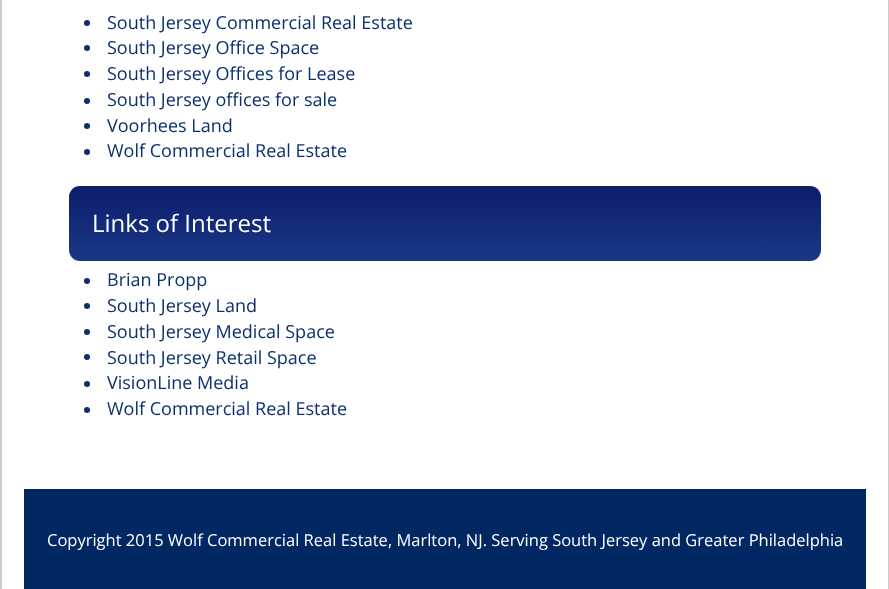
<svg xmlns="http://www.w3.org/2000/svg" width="889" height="589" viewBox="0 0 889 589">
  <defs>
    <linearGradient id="g1" gradientUnits="userSpaceOnUse" x1="445" y1="186" x2="445" y2="261"><stop offset="0" stop-color="#0d1d6a"/><stop offset="1" stop-color="#193886"/></linearGradient>
  </defs>
  <rect width="100%" height="100%" fill="#fff"/>
  <path d="M888 0h1v589H888z" fill="#ccc"/>
  <path d="M0 0h2v589H0z" fill="#ccc"/>
  <circle cx="87" cy="23" r="3" fill="#0c2f6e"/>
  <circle cx="87" cy="48" r="3" fill="#0c2f6e"/>
  <circle cx="87" cy="74" r="3" fill="#0c2f6e"/>
  <circle cx="87" cy="101" r="3" fill="#0c2f6e"/>
  <circle cx="87" cy="126" r="3" fill="#0c2f6e"/>
  <circle cx="87" cy="152" r="3" fill="#0c2f6e"/>
  <rect x="69" y="186" width="752" height="75" rx="11" fill="url(#g1)"/>
  <circle cx="87" cy="281" r="3" fill="#0c2f6e"/>
  <circle cx="87" cy="306" r="3" fill="#0c2f6e"/>
  <circle cx="87" cy="332" r="3" fill="#0c2f6e"/>
  <circle cx="87" cy="357" r="3" fill="#0c2f6e"/>
  <circle cx="87" cy="384" r="3" fill="#0c2f6e"/>
  <circle cx="87" cy="410" r="3" fill="#0c2f6e"/>
  <path d="M24 489h842v100H24z" fill="#022863"/>
  <g font-family="Open Sans" font-size="18" fill="#0c2f6e">
    <text x="107" y="29">South Jersey Commercial Real Estate</text>
    <text x="107" y="54">South Jersey Office Space</text>
    <text x="107" y="80">South Jersey Offices for Lease</text>
    <text x="107" y="106">South Jersey offices for sale</text>
    <text x="107" y="132">Voorhees Land</text>
    <text x="107" y="157">Wolf Commercial Real Estate</text>
  </g>
  <text x="92" y="232" font-family="Open Sans" font-size="24" fill="#fff">Links of Interest</text>
  <g font-family="Open Sans" font-size="18" fill="#0c2f6e">
    <text x="107" y="286">Brian Propp</text>
    <text x="107" y="312">South Jersey Land</text>
    <text x="107" y="338">South Jersey Medical Space</text>
    <text x="107" y="364">South Jersey Retail Space</text>
    <text x="107" y="389">VisionLine Media</text>
    <text x="107" y="415">Wolf Commercial Real Estate</text>
  </g>
  <text x="47" y="546" font-family="Open Sans" font-size="16.5" fill="#fff">Copyright 2015 Wolf Commercial Real Estate, Marlton, NJ. Serving South Jersey and Greater Philadelphia</text>
</svg>
